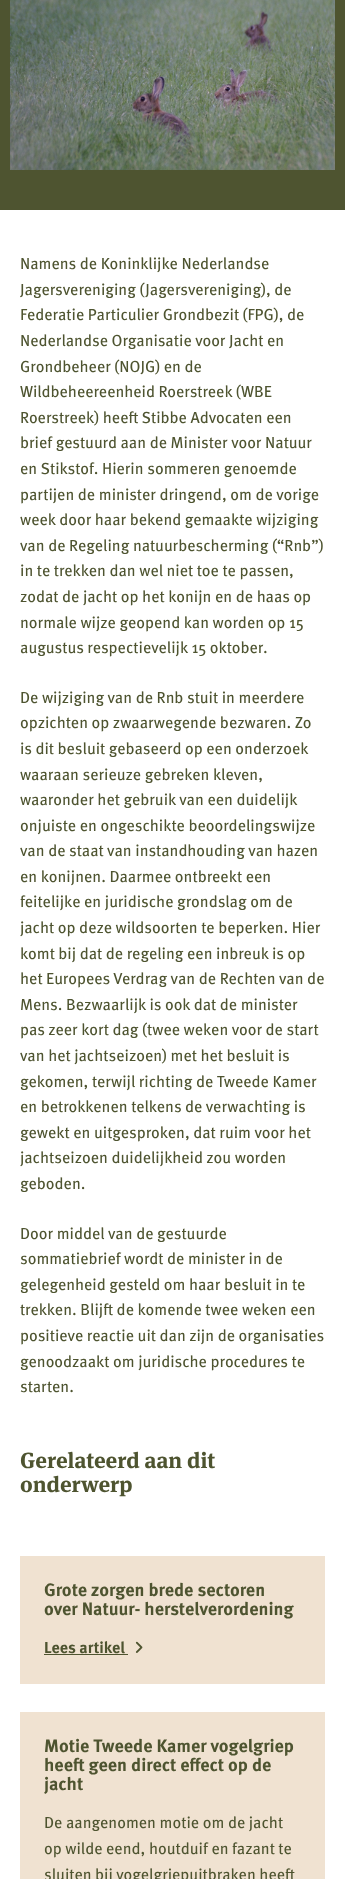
<svg xmlns="http://www.w3.org/2000/svg" width="345" height="1879" viewBox="0 0 345 1879">
  <rect width="100%" height="100%" fill="#fff"/>
  <path d="M0 0h345v210H0z" fill="#4e5430"/>
  <image x="10" y="0" width="325" height="170" href="img/1.png"/>
  <path d="M20 1556h305v128H20z" fill="#f0e2d1"/>
  <path d="M44 1654h84v1H44z" fill="#4e5430"/>
  <image x="135" y="1641" width="8" height="12" href="img/2.png"/>
  <path d="M20 1712h305v167H20z" fill="#f0e2d1"/>
  <g font-family="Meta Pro" font-size="16" fill="#4e5430">
    <text x="20" y="269">Namens de Koninklijke Nederlandse</text>
    <text x="20" y="295">Jagersvereniging (Jagersvereniging), de</text>
    <text x="20" y="320">Federatie Particulier Grondbezit (FPG), de</text>
    <text x="20" y="346">Nederlandse Organisatie voor Jacht en</text>
    <text x="20" y="372">Grondbeheer (NOJG) en de</text>
    <text x="20" y="397">Wildbeheereenheid Roerstreek (WBE</text>
    <text x="20" y="423">Roerstreek) heeft Stibbe Advocaten een</text>
    <text x="20" y="448">brief gestuurd aan de Minister voor Natuur</text>
    <text x="20" y="474">en Stikstof. Hierin sommeren genoemde</text>
    <text x="20" y="500">partijen de minister dringend, om de vorige</text>
    <text x="20" y="525">week door haar bekend gemaakte wijziging</text>
    <text x="20" y="551">van de Regeling natuurbescherming (“Rnb”)</text>
    <text x="20" y="576">in te trekken dan wel niet toe te passen,</text>
    <text x="20" y="602">zodat de jacht op het konijn en de haas op</text>
    <text x="20" y="628">normale wijze geopend kan worden op 15</text>
    <text x="20" y="653">augustus respectievelijk 15 oktober.</text>
    <text x="20" y="703">De wijziging van de Rnb stuit in meerdere</text>
    <text x="20" y="728">opzichten op zwaarwegende bezwaren. Zo</text>
    <text x="20" y="754">is dit besluit gebaseerd op een onderzoek</text>
    <text x="20" y="780">waaraan serieuze gebreken kleven,</text>
    <text x="20" y="805">waaronder het gebruik van een duidelijk</text>
    <text x="20" y="831">onjuiste en ongeschikte beoordelingswijze</text>
    <text x="20" y="856">van de staat van instandhouding van hazen</text>
    <text x="20" y="882">en konijnen. Daarmee ontbreekt een</text>
    <text x="20" y="907">feitelijke en juridische grondslag om de</text>
    <text x="20" y="933">jacht op deze wildsoorten te beperken. Hier</text>
    <text x="20" y="959">komt bij dat de regeling een inbreuk is op</text>
    <text x="20" y="984">het Europees Verdrag van de Rechten van de</text>
    <text x="20" y="1010">Mens. Bezwaarlijk is ook dat de minister</text>
    <text x="20" y="1035">pas zeer kort dag (twee weken voor de start</text>
    <text x="20" y="1061">van het jachtseizoen) met het besluit is</text>
    <text x="20" y="1087">gekomen, terwijl richting de Tweede Kamer</text>
    <text x="20" y="1112">en betrokkenen telkens de verwachting is</text>
    <text x="20" y="1138">gewekt en uitgesproken, dat ruim voor het</text>
    <text x="20" y="1163">jachtseizoen duidelijkheid zou worden</text>
    <text x="20" y="1189">geboden.</text>
    <text x="20" y="1239">Door middel van de gestuurde</text>
    <text x="20" y="1264">sommatiebrief wordt de minister in de</text>
    <text x="20" y="1290">gelegenheid gesteld om haar besluit in te</text>
    <text x="20" y="1315">trekken. Blijft de komende twee weken een</text>
    <text x="20" y="1341">positieve reactie uit dan zijn de organisaties</text>
    <text x="20" y="1367">genoodzaakt om juridische procedures te</text>
    <text x="20" y="1392">starten.</text>
  </g>
  <g font-family="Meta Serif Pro" font-size="22" font-weight="bold" fill="#4e5430">
    <text x="20" y="1468">Gerelateerd aan dit</text>
    <text x="20" y="1492">onderwerp</text>
  </g>
  <g font-family="Meta Pro" font-size="18" font-weight="bold" fill="#4e5430">
    <text x="44" y="1596">Grote zorgen brede sectoren</text>
    <text x="44" y="1615">over Natuur- herstelverordening</text>
  </g>
  <text x="44" y="1653" font-family="Meta Pro" font-size="16" font-weight="bold" fill="#4e5430">Lees artikel</text>
  <g font-family="Meta Pro" font-size="18" font-weight="bold" fill="#4e5430">
    <text x="44" y="1752">Motie Tweede Kamer vogelgriep</text>
    <text x="44" y="1771">heeft geen direct effect op de</text>
    <text x="44" y="1790">jacht</text>
  </g>
  <g font-family="Meta Pro" font-size="16" fill="#4e5430">
    <text x="44" y="1828">De aangenomen motie om de jacht</text>
    <text x="44" y="1854">op wilde eend, houtduif en fazant te</text>
    <text x="44" y="1880">sluiten bij vogelgriepuitbraken heeft</text>
  </g>
</svg>
